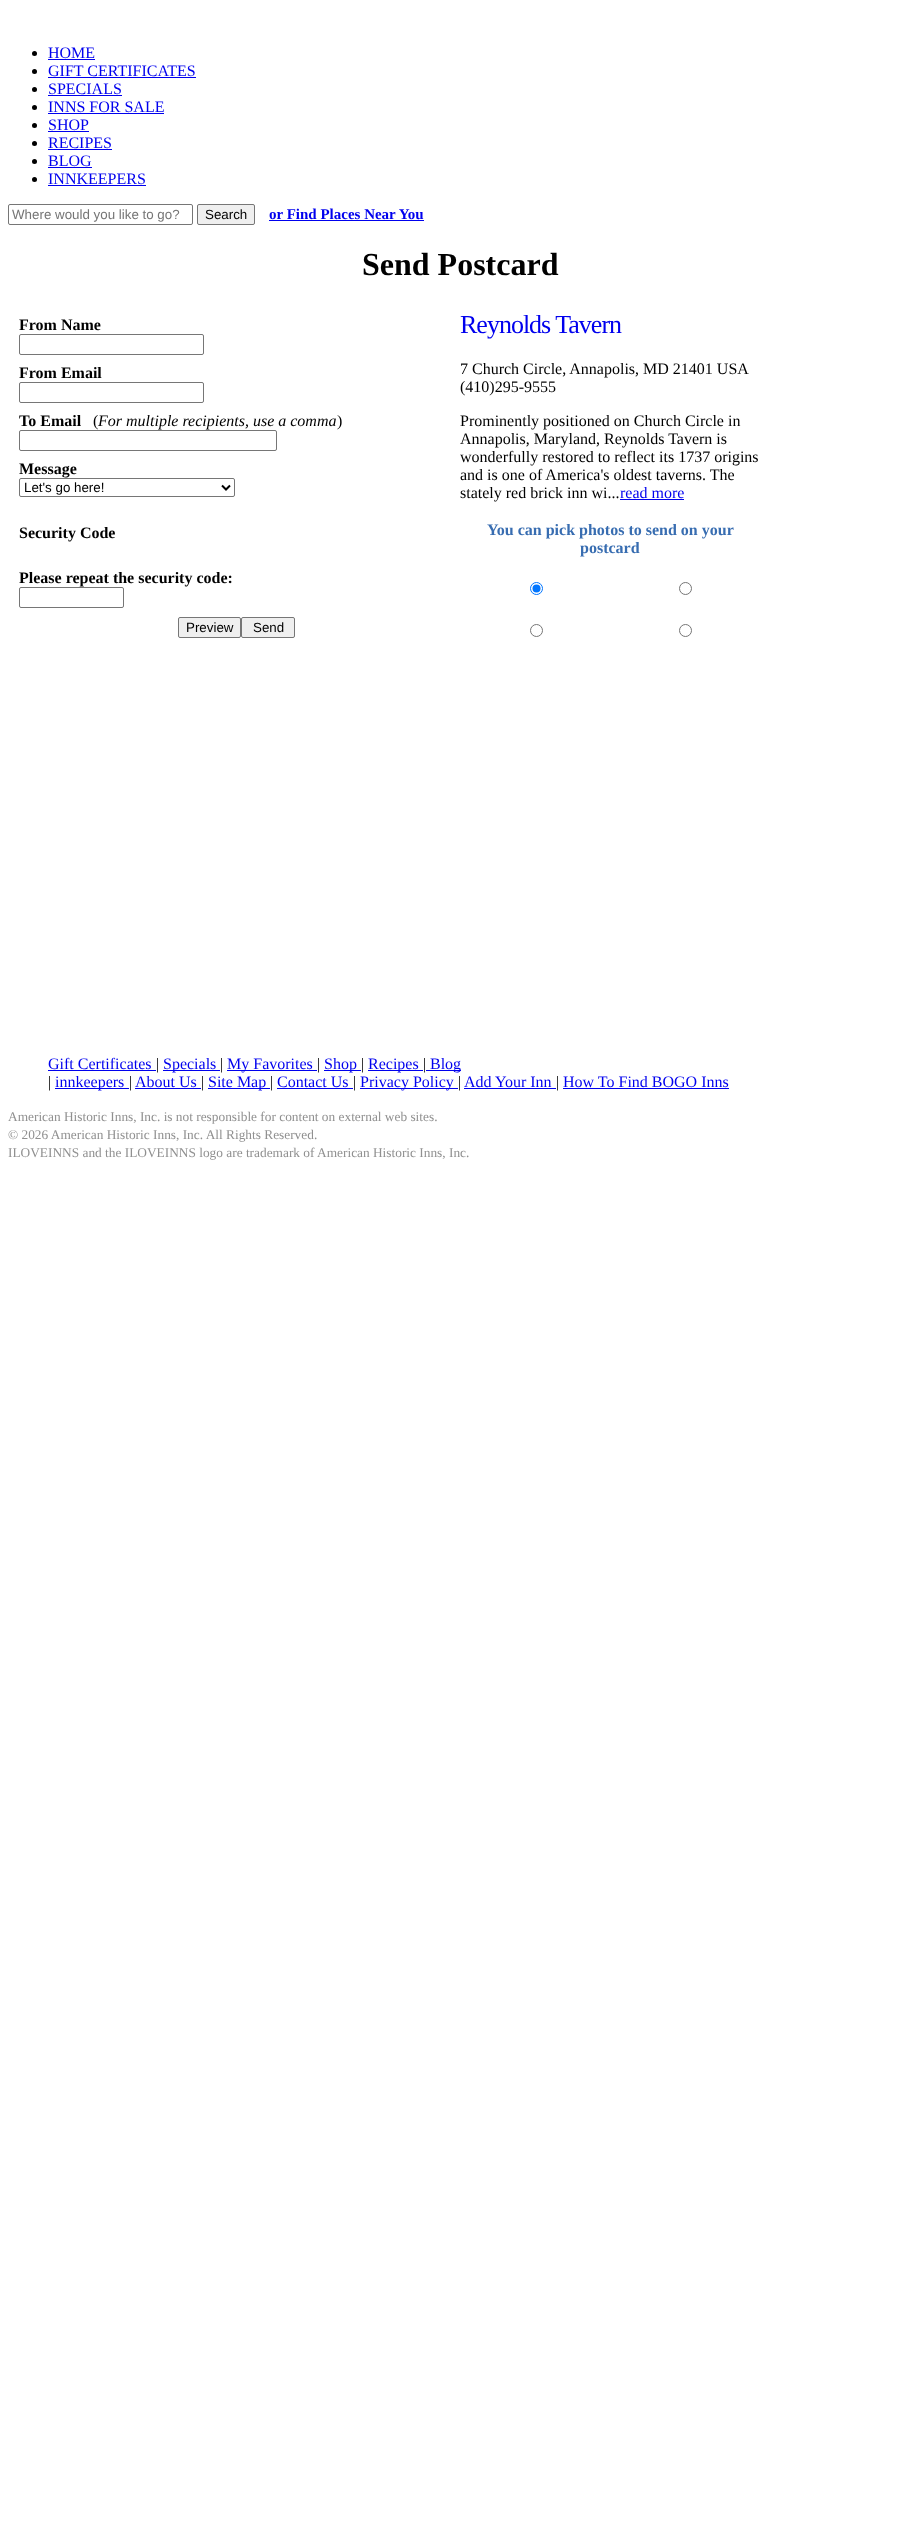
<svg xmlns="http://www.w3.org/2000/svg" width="920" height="2522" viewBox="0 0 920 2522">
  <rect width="100%" height="100%" fill="#fff"/>
  <circle cx="34.5" cy="53.5" r="2.5" fill="#000"/>
  <path d="M48 59h47v1H48z" fill="#00e"/>
  <circle cx="34.5" cy="71.5" r="2.5" fill="#000"/>
  <path d="M48 77h148v1H48z" fill="#00e"/>
  <circle cx="34.5" cy="89.5" r="2.5" fill="#000"/>
  <path d="M48 95h74v1H48z" fill="#00e"/>
  <circle cx="34.5" cy="107.5" r="2.5" fill="#000"/>
  <path d="M48 113h116v1H48z" fill="#00e"/>
  <circle cx="34.5" cy="125.5" r="2.5" fill="#000"/>
  <path d="M48 131h41v1H48z" fill="#00e"/>
  <circle cx="34.5" cy="143.5" r="2.5" fill="#000"/>
  <path d="M48 149h64v1H48z" fill="#00e"/>
  <circle cx="34.5" cy="161.5" r="2.5" fill="#000"/>
  <path d="M48 167h44v1H48z" fill="#00e"/>
  <circle cx="34.5" cy="179.5" r="2.5" fill="#000"/>
  <path d="M48 185h98v1H48z" fill="#00e"/>
  <rect x="8.5" y="204.5" width="184" height="20" rx="1.5" fill="none" stroke="#767676"/>
  <rect x="197.5" y="204.5" width="57" height="20" rx="1.5" fill="#efefef" stroke="#767676"/>
  <path d="M269 220h155v1H269z" fill="#00e"/>
  <rect x="19.5" y="334.5" width="184" height="20" rx="1.5" fill="none" stroke="#767676"/>
  <rect x="19.5" y="382.5" width="184" height="20" rx="1.5" fill="none" stroke="#767676"/>
  <rect x="19.5" y="430.5" width="257" height="20" rx="1.5" fill="none" stroke="#767676"/>
  <rect x="19.5" y="478.5" width="215" height="18" rx="1.5" fill="none" stroke="#767676"/>
  <path d="M222 485.5L226 489.5L230 485.5" fill="none" stroke="#000" stroke-width="2"/>
  <rect x="19.5" y="587.5" width="104" height="20" rx="1.5" fill="none" stroke="#767676"/>
  <rect x="178.5" y="617.5" width="62" height="20" rx="1.5" fill="#efefef" stroke="#767676"/>
  <rect x="241.5" y="617.5" width="53" height="20" rx="1.5" fill="#efefef" stroke="#767676"/>
  <path d="M620 499h64v1H620z" fill="#00e"/>
  <circle cx="536.5" cy="588.5" r="6" fill="none" stroke="#0075ff"/>
  <circle cx="536.5" cy="588.5" r="4" fill="#0075ff"/>
  <circle cx="685.5" cy="588.5" r="6" fill="none" stroke="#767676"/>
  <circle cx="536.5" cy="630.5" r="6" fill="none" stroke="#767676"/>
  <circle cx="685.5" cy="630.5" r="6" fill="none" stroke="#767676"/>
  <path d="M48 1070h108v1H48z" fill="#00e"/>
  <path d="M163 1070h57v1H163z" fill="#00e"/>
  <path d="M227 1070h90v1H227z" fill="#00e"/>
  <path d="M324 1070h37v1H324z" fill="#00e"/>
  <path d="M368 1070h55v1H368z" fill="#00e"/>
  <path d="M426 1070h35v1H426z" fill="#00e"/>
  <path d="M55 1088h74v1H55z" fill="#00e"/>
  <path d="M135 1088h66v1H135z" fill="#00e"/>
  <path d="M208 1088h62v1H208z" fill="#00e"/>
  <path d="M277 1088h76v1H277z" fill="#00e"/>
  <path d="M360 1088h98v1H360z" fill="#00e"/>
  <path d="M464 1088h92v1H464z" fill="#00e"/>
  <path d="M563 1088h166v1H563z" fill="#00e"/>
  <g font-family="Liberation Serif" font-size="16" fill="#00e">
    <text x="48" y="58">HOME</text>
    <text x="48" y="76">GIFT CERTIFICATES</text>
    <text x="48" y="94">SPECIALS</text>
    <text x="48" y="112">INNS FOR SALE</text>
    <text x="48" y="130">SHOP</text>
    <text x="48" y="148">RECIPES</text>
    <text x="48" y="166">BLOG</text>
    <text x="48" y="184">INNKEEPERS</text>
  </g>
  <text x="12" y="219" font-family="Liberation Sans" font-size="13.35" fill="#757575">Where would you like to go?</text>
  <text x="205" y="219" font-family="Liberation Sans" font-size="13.35" fill="#000">Search</text>
  <text x="269" y="219" font-family="Liberation Serif" font-size="15" font-weight="bold" fill="#00e">or Find Places Near You</text>
  <text x="362" y="275" font-family="Liberation Serif" font-size="32" font-weight="bold" fill="#000">Send Postcard</text>
  <g font-family="Liberation Serif" font-size="16" font-weight="bold" fill="#000">
    <text x="19" y="330">From Name</text>
    <text x="19" y="378">From Email</text>
    <text x="19" y="426">To Email</text>
  </g>
  <text x="93" y="426" font-family="Liberation Serif" font-size="16" fill="#000">(</text>
  <text x="98" y="426" font-family="Liberation Serif" font-size="16" font-style="italic" fill="#000">For multiple recipients, use a comma</text>
  <text x="337" y="426" font-family="Liberation Serif" font-size="16" fill="#000">)</text>
  <text x="19" y="474" font-family="Liberation Serif" font-size="16" font-weight="bold" fill="#000">Message</text>
  <text x="24" y="492" font-family="Liberation Sans" font-size="13.35" fill="#000">Let's go here!</text>
  <g font-family="Liberation Serif" font-size="16" font-weight="bold" fill="#000">
    <text x="19" y="538">Security Code</text>
    <text x="19" y="583">Please repeat the security code:</text>
  </g>
  <g font-family="Liberation Sans" font-size="13.35" fill="#000">
    <text x="186" y="632">Preview</text>
    <text x="253" y="632">Send</text>
  </g>
  <text x="460" y="333" font-family="Liberation Serif" font-size="26" letter-spacing="-1" fill="#00e">Reynolds Tavern</text>
  <g font-family="Liberation Serif" font-size="16" fill="#000">
    <text x="460" y="374">7 Church Circle, Annapolis, MD 21401 USA</text>
    <text x="460" y="392">(410)295-9555</text>
    <text x="460" y="426">Prominently positioned on Church Circle in</text>
    <text x="460" y="444">Annapolis, Maryland, Reynolds Tavern is</text>
    <text x="460" y="462">wonderfully restored to reflect its 1737 origins</text>
    <text x="460" y="480">and is one of America's oldest taverns. The</text>
    <text x="460" y="498">stately red brick inn wi...</text>
  </g>
  <text x="620" y="498" font-family="Liberation Serif" font-size="16" fill="#00e">read more</text>
  <g font-family="Liberation Serif" font-size="16" font-weight="bold" fill="#386db1">
    <text x="487" y="535">You can pick photos to send on your</text>
    <text x="580" y="553">postcard</text>
  </g>
  <text x="48" y="1069" font-family="Liberation Serif" font-size="16" fill="#00e">Gift Certificates</text>
  <text x="156" y="1069" font-family="Liberation Serif" font-size="16" fill="#000">|</text>
  <text x="163" y="1069" font-family="Liberation Serif" font-size="16" fill="#00e">Specials</text>
  <text x="220" y="1069" font-family="Liberation Serif" font-size="16" fill="#000">|</text>
  <text x="227" y="1069" font-family="Liberation Serif" font-size="16" fill="#00e">My Favorites</text>
  <text x="317" y="1069" font-family="Liberation Serif" font-size="16" fill="#000">|</text>
  <text x="324" y="1069" font-family="Liberation Serif" font-size="16" fill="#00e">Shop</text>
  <text x="361" y="1069" font-family="Liberation Serif" font-size="16" fill="#000">|</text>
  <text x="368" y="1069" font-family="Liberation Serif" font-size="16" fill="#00e">Recipes</text>
  <text x="423" y="1069" font-family="Liberation Serif" font-size="16" fill="#000">|</text>
  <text x="430" y="1069" font-family="Liberation Serif" font-size="16" fill="#00e">Blog</text>
  <text x="48" y="1087" font-family="Liberation Serif" font-size="16" fill="#000">|</text>
  <text x="55" y="1087" font-family="Liberation Serif" font-size="16" fill="#00e">innkeepers</text>
  <text x="129" y="1087" font-family="Liberation Serif" font-size="16" fill="#000">|</text>
  <text x="135" y="1087" font-family="Liberation Serif" font-size="16" fill="#00e">About Us</text>
  <text x="201" y="1087" font-family="Liberation Serif" font-size="16" fill="#000">|</text>
  <text x="208" y="1087" font-family="Liberation Serif" font-size="16" fill="#00e">Site Map</text>
  <text x="270" y="1087" font-family="Liberation Serif" font-size="16" fill="#000">|</text>
  <text x="277" y="1087" font-family="Liberation Serif" font-size="16" fill="#00e">Contact Us</text>
  <text x="353" y="1087" font-family="Liberation Serif" font-size="16" fill="#000">|</text>
  <text x="360" y="1087" font-family="Liberation Serif" font-size="16" fill="#00e">Privacy Policy</text>
  <text x="458" y="1087" font-family="Liberation Serif" font-size="16" fill="#000">|</text>
  <text x="464" y="1087" font-family="Liberation Serif" font-size="16" fill="#00e">Add Your Inn</text>
  <text x="556" y="1087" font-family="Liberation Serif" font-size="16" fill="#000">|</text>
  <text x="563" y="1087" font-family="Liberation Serif" font-size="16" fill="#00e">How To Find BOGO Inns</text>
  <g font-family="Liberation Serif" font-size="13.35" fill="#909090">
    <text x="8" y="1121">American Historic Inns, Inc. is not responsible for content on external web sites.</text>
    <text x="8" y="1139">© 2026 American Historic Inns, Inc. All Rights Reserved.</text>
    <text x="8" y="1157">ILOVEINNS and the ILOVEINNS logo are trademark of American Historic Inns, Inc.</text>
  </g>
</svg>
